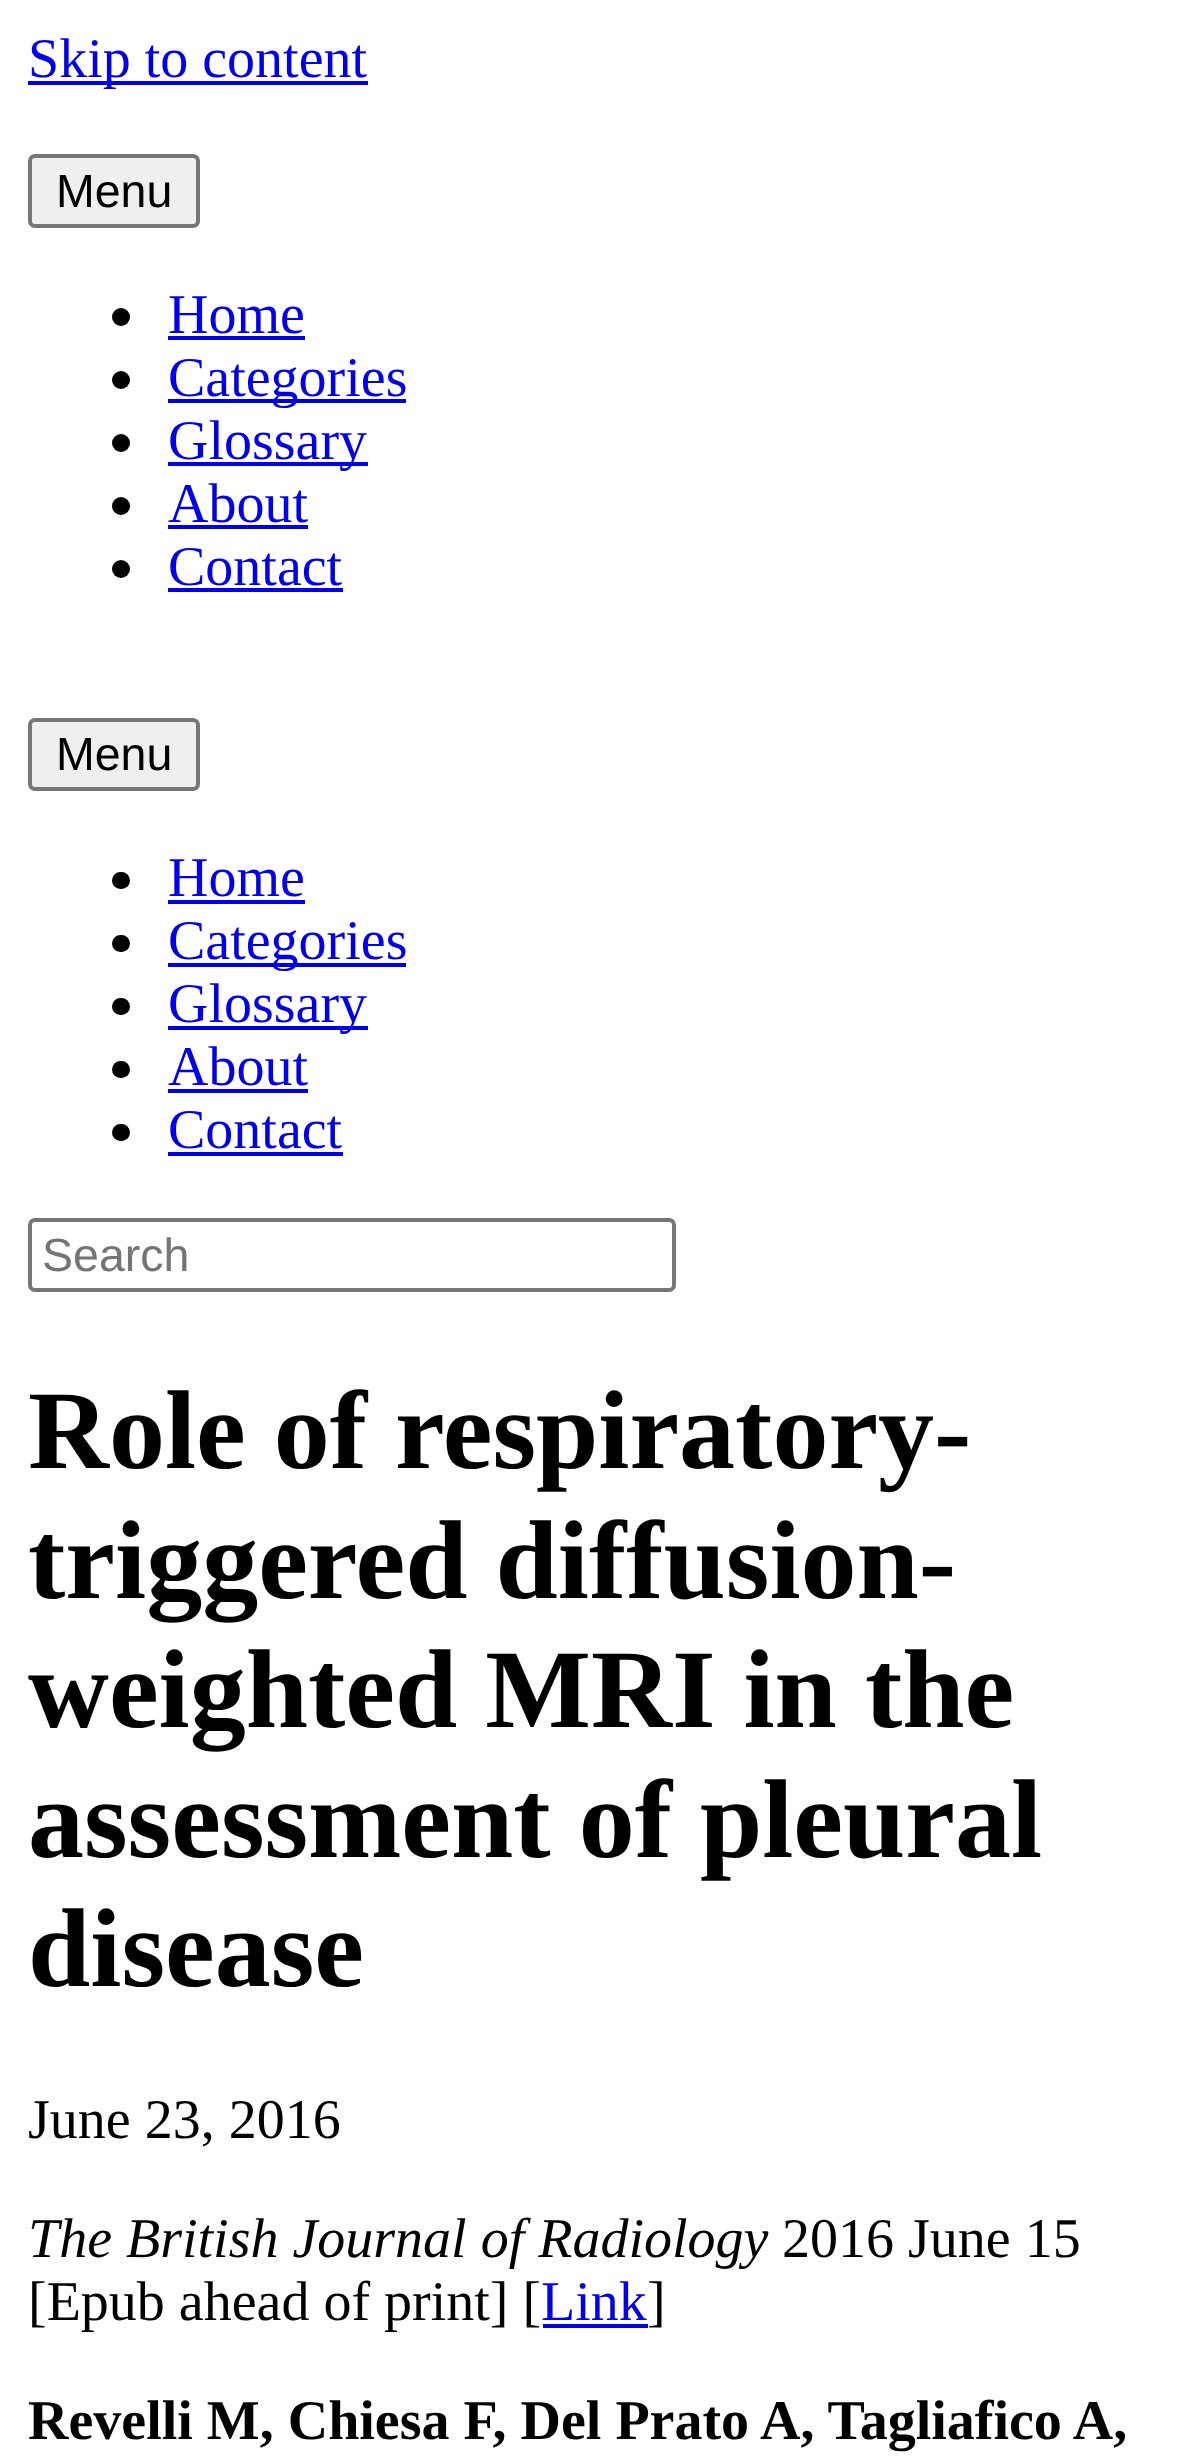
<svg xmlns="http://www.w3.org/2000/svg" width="1193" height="2461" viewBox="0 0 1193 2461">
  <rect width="100%" height="100%" fill="#fff"/>
  <path d="M28 81h340v4H28z" fill="#00e"/>
  <rect x="30" y="156" width="168" height="70" rx="5" fill="#efefef" stroke="#767676" stroke-width="4"/>
  <circle cx="121" cy="317" r="9" fill="#000"/>
  <path d="M168 336h137v4H168z" fill="#00e"/>
  <circle cx="121" cy="380" r="9" fill="#000"/>
  <path d="M168 399h238v4H168z" fill="#00e"/>
  <circle cx="121" cy="443" r="9" fill="#000"/>
  <path d="M168 462h200v4H168z" fill="#00e"/>
  <circle cx="121" cy="506" r="9" fill="#000"/>
  <path d="M168 525h140v4H168z" fill="#00e"/>
  <circle cx="121" cy="569" r="9" fill="#000"/>
  <path d="M168 588h175v4H168z" fill="#00e"/>
  <rect x="30" y="720" width="168" height="69" rx="5" fill="#efefef" stroke="#767676" stroke-width="4"/>
  <rect x="112" y="872" width="18" height="17" rx="8.5" fill="#000"/>
  <path d="M168 900h137v4H168z" fill="#00e"/>
  <rect x="112" y="935" width="18" height="17" rx="8.5" fill="#000"/>
  <path d="M168 963h238v4H168z" fill="#00e"/>
  <rect x="112" y="998" width="18" height="17" rx="8.5" fill="#000"/>
  <path d="M168 1026h200v4H168z" fill="#00e"/>
  <rect x="112" y="1061" width="18" height="17" rx="8.5" fill="#000"/>
  <path d="M168 1089h140v4H168z" fill="#00e"/>
  <rect x="112" y="1124" width="18" height="17" rx="8.5" fill="#000"/>
  <path d="M168 1152h175v4H168z" fill="#00e"/>
  <rect x="30" y="1220" width="644" height="70" rx="5" fill="none" stroke="#767676" stroke-width="4"/>
  <path d="M543 2324h105v4H543z" fill="#00e"/>
  <text x="28" y="77" font-family="Liberation Serif" font-size="56" fill="#00e">Skip to content</text>
  <text x="56" y="207" font-family="Liberation Sans" font-size="46.5" fill="#000">Menu</text>
  <g font-family="Liberation Serif" font-size="56" fill="#00e">
    <text x="168" y="333">Home</text>
    <text x="168" y="396">Categories</text>
    <text x="168" y="459">Glossary</text>
    <text x="168" y="522">About</text>
    <text x="168" y="585">Contact</text>
  </g>
  <text x="56" y="770" font-family="Liberation Sans" font-size="46.5" fill="#000">Menu</text>
  <g font-family="Liberation Serif" font-size="56" fill="#00e">
    <text x="168" y="896">Home</text>
    <text x="168" y="959">Categories</text>
    <text x="168" y="1022">Glossary</text>
    <text x="168" y="1085">About</text>
    <text x="168" y="1148">Contact</text>
  </g>
  <text x="42" y="1271" font-family="Liberation Sans" font-size="46.5" fill="#757575">Search</text>
  <g font-family="Liberation Serif" font-size="112" font-weight="bold" fill="#000">
    <text x="28" y="1468">Role of respiratory-</text>
    <text x="28" y="1598">triggered diffusion-</text>
    <text x="28" y="1727">weighted MRI in the</text>
    <text x="28" y="1857">assessment of pleural</text>
    <text x="28" y="1986">disease</text>
  </g>
  <text x="28" y="2138" font-family="Liberation Serif" font-size="56" fill="#000">June 23, 2016</text>
  <text x="28" y="2257" font-family="Liberation Serif" font-size="56" font-style="italic" fill="#000">The British Journal of Radiology</text>
  <g font-family="Liberation Serif" font-size="56" fill="#000">
    <text x="782" y="2257">2016 June 15</text>
    <text x="28" y="2320">[Epub ahead of print] [</text>
  </g>
  <text x="541" y="2320" font-family="Liberation Serif" font-size="56" fill="#00e">Link</text>
  <text x="647" y="2320" font-family="Liberation Serif" font-size="56" fill="#000">]</text>
  <text x="28" y="2439" font-family="Liberation Serif" font-size="56" font-weight="bold" fill="#000">Revelli M, Chiesa F, Del Prato A, Tagliafico A,</text>
</svg>
